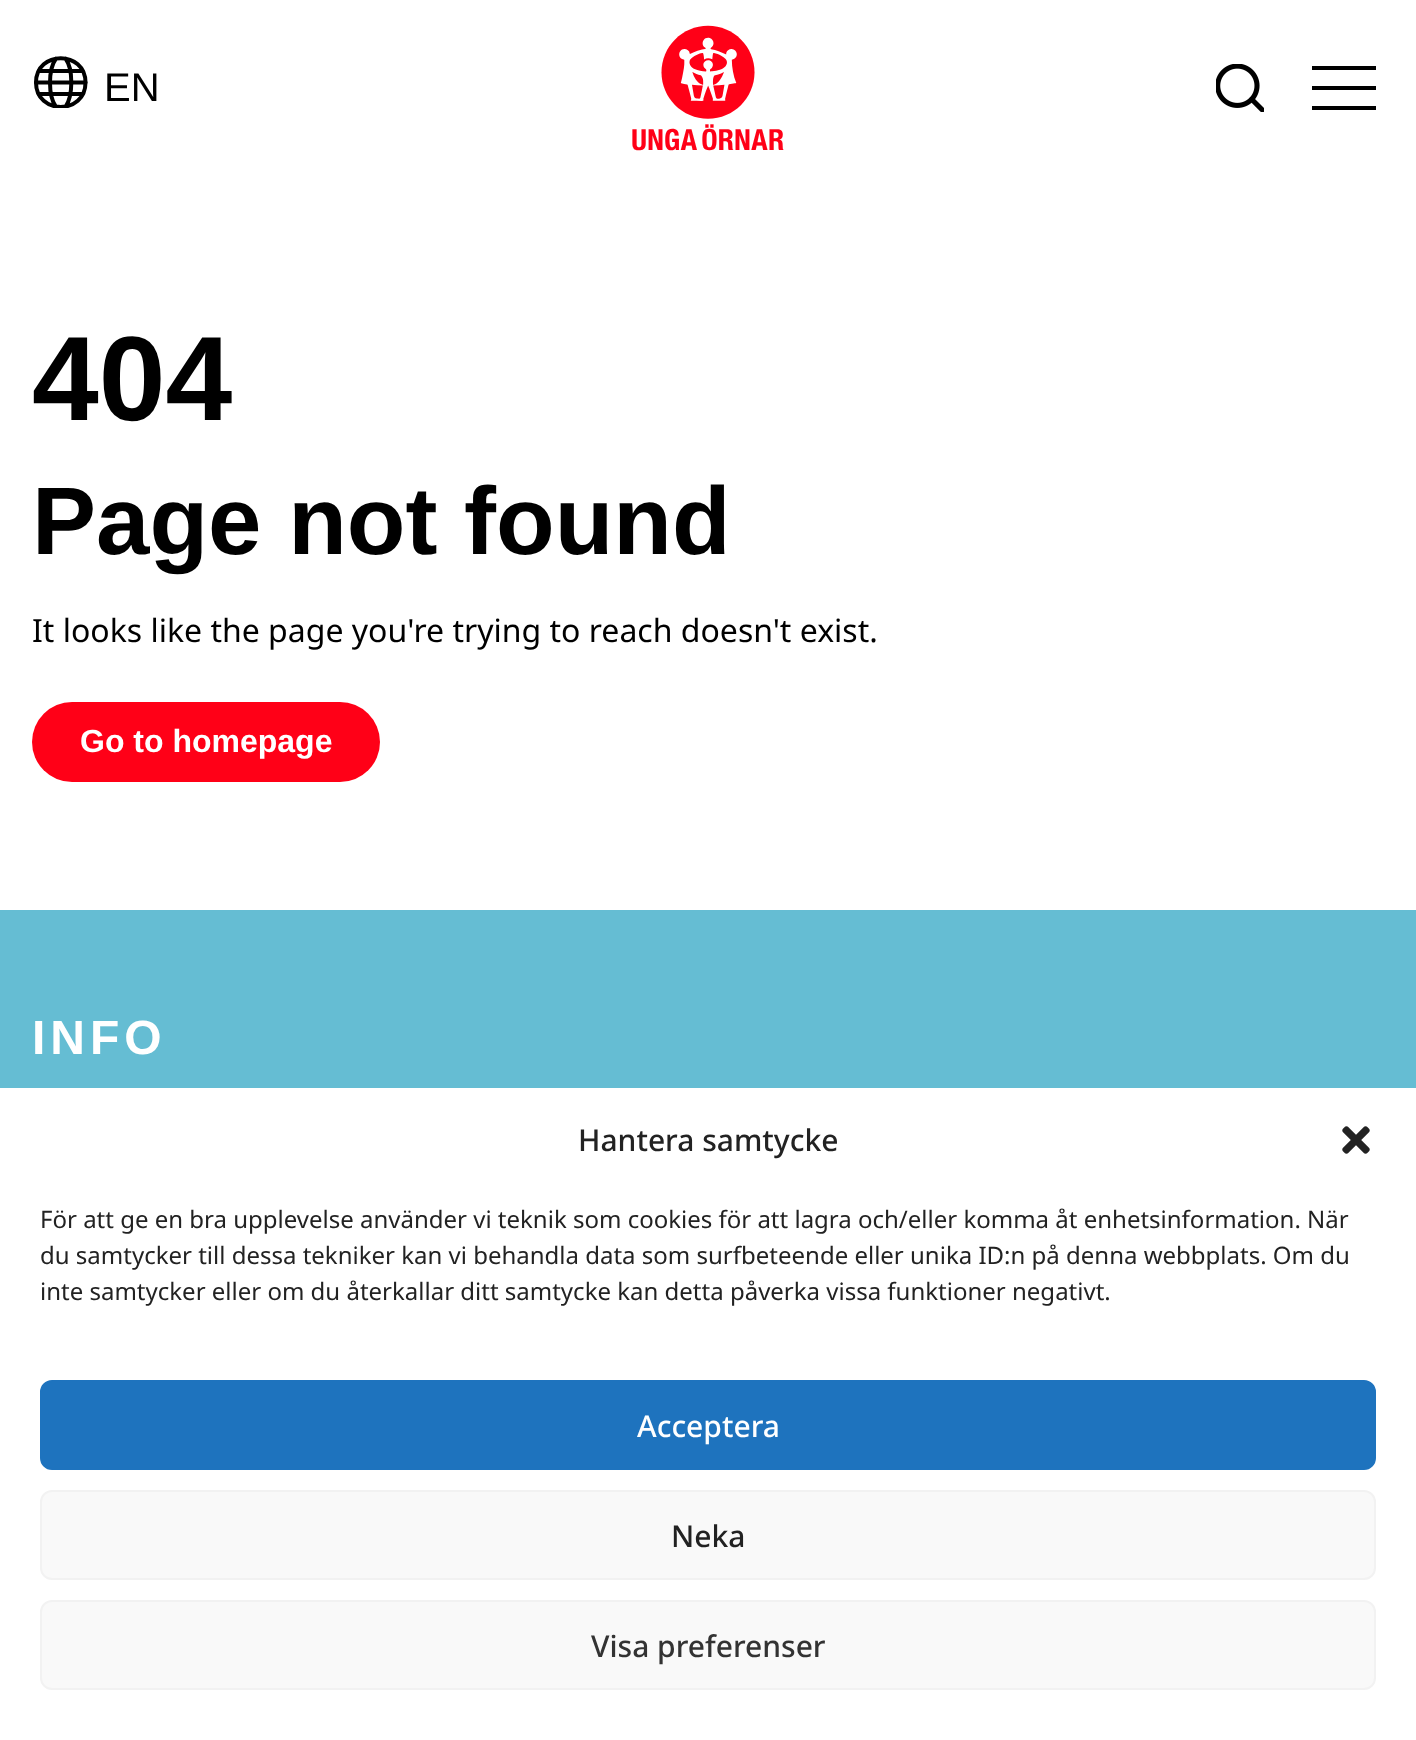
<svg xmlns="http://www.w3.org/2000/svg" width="1416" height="1740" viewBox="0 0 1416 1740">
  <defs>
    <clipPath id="clip1"><path d="M32 56h56v52H32z"/></clipPath>
  </defs>
  <rect width="100%" height="100%" fill="#fff"/>
  <g clip-path="url(#clip1)">
    <path d="M36 82.5C36 115 85.5 115 85.5 82.5C85.5 50 36 50 36 82.5ZM56 107C48 96 48 69.5 56 58.5M65.5 107C73 96 73.5 69.5 65.5 58.5" fill="none" stroke="#000" stroke-width="4" stroke-linecap="round" stroke-linejoin="round"/>
  </g>
  <path d="M36 82.5H85.5M39 94H82.5M39 71H82.5" fill="none" stroke="#000" stroke-width="4" stroke-linecap="round" stroke-linejoin="round"/>
  <image x="632" y="25" width="152" height="126" href="img/1.png"/>
  <image x="1216" y="64" width="48" height="48" href="img/2.png"/>
  <path d="M1312 66h64v4H1312z" fill="#000"/>
  <path d="M1312 86h64v4H1312z" fill="#000"/>
  <path d="M1312 106h64v4H1312z" fill="#000"/>
  <rect x="32" y="702" width="348" height="80" rx="40" fill="#ff0017"/>
  <path d="M0 910h1416v178H0z" fill="#65bdd3"/>
  <image x="1342" y="1126" width="28" height="28" href="img/3.png"/>
  <rect x="41" y="1381" width="1334" height="88" rx="11" fill="#1e73be" stroke="#1e73be" stroke-width="2"/>
  <rect x="41" y="1491" width="1334" height="88" rx="11" fill="#f9f9f9" stroke="#f2f2f2" stroke-width="2"/>
  <rect x="41" y="1601" width="1334" height="88" rx="11" fill="#f9f9f9" stroke="#f2f2f2" stroke-width="2"/>
  <text x="104" y="101" font-family="Liberation Sans" font-size="40" fill="#000">EN</text>
  <text x="32" y="420" font-family="Liberation Sans" font-size="120" font-weight="bold" fill="#000">404</text>
  <text x="32" y="554" font-family="Liberation Sans" font-size="96" font-weight="bold" fill="#000">Page not found</text>
  <text x="32" y="642" font-family="Noto Sans" font-size="32" fill="#000">It looks like the page you're trying to reach doesn't exist.</text>
  <text x="80" y="752" font-family="Liberation Sans" font-size="32" font-weight="bold" fill="#fff">Go to homepage</text>
  <text x="32" y="1054" font-family="Liberation Sans" font-size="48" font-weight="bold" letter-spacing="5" fill="#fff">INFO</text>
  <text x="578" y="1151" font-family="Noto Sans" font-size="30" font-weight="500" fill="#222">Hantera samtycke</text>
  <g font-family="Noto Sans" font-size="24" fill="#222">
    <text x="40" y="1228">För att ge en bra upplevelse använder vi teknik som cookies för att lagra och/eller komma åt enhetsinformation. När</text>
    <text x="40" y="1264">du samtycker till dessa tekniker kan vi behandla data som surfbeteende eller unika ID:n på denna webbplats. Om du</text>
    <text x="40" y="1300">inte samtycker eller om du återkallar ditt samtycke kan detta påverka vissa funktioner negativt.</text>
  </g>
  <text x="637" y="1437" font-family="Noto Sans" font-size="30" font-weight="500" fill="#fff">Acceptera</text>
  <text x="671" y="1547" font-family="Noto Sans" font-size="30" font-weight="500" fill="#222">Neka</text>
  <text x="591" y="1657" font-family="Noto Sans" font-size="30" font-weight="500" fill="#333">Visa preferenser</text>
</svg>
